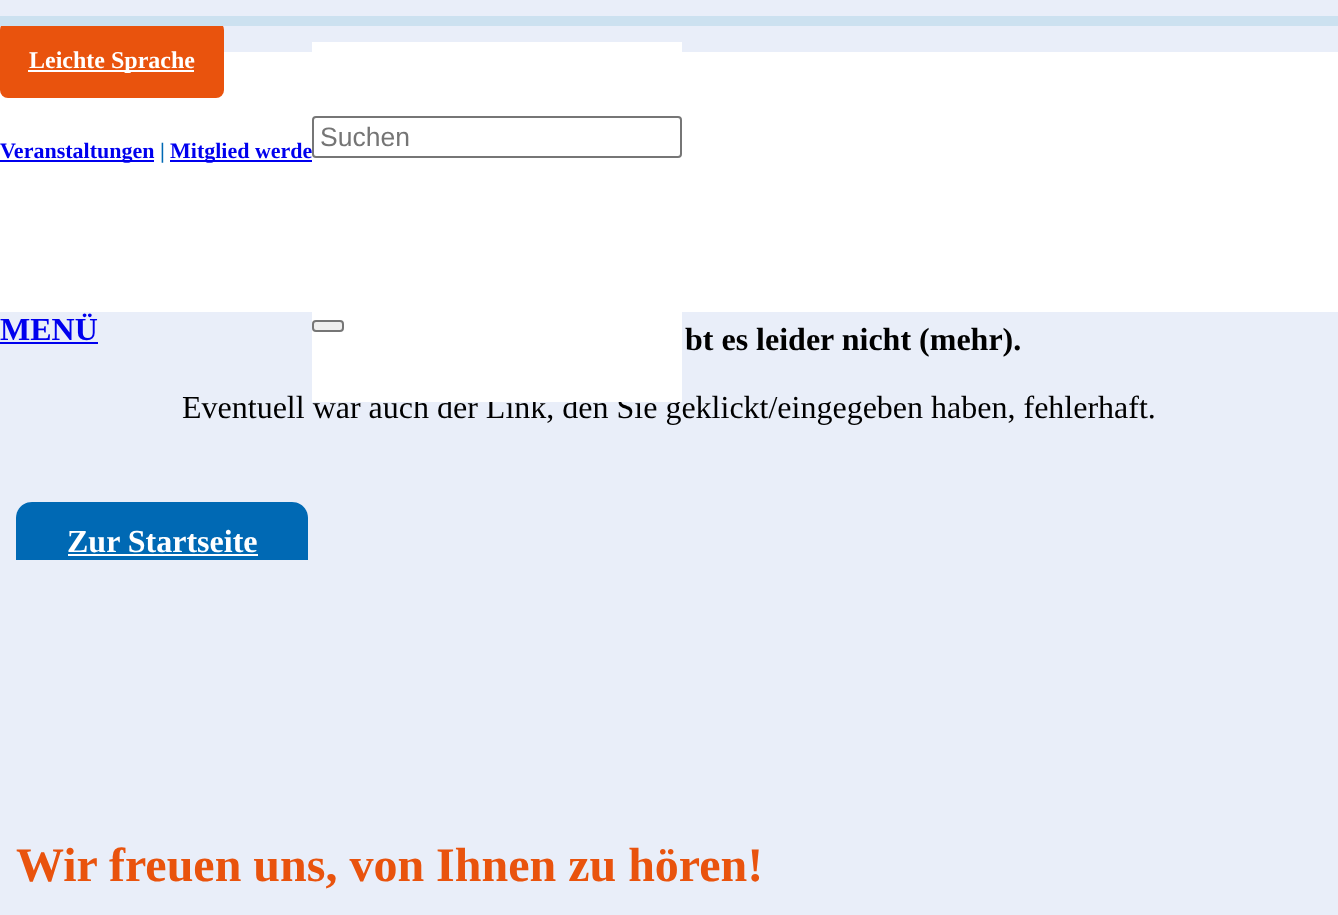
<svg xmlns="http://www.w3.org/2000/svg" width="1338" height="915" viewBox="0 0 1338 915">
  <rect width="100%" height="100%" fill="#e9eef9"/>
  <path d="M0 52h1338v260H0z" fill="#fff"/>
  <rect y="22" width="224" height="76" rx="8" fill="#e9530d"/>
  <path d="M0 16h1338v10H0z" fill="#cce1f0"/>
  <path d="M28 70h166v2H28z" fill="#fff"/>
  <path d="M0 160h154v2H0z" fill="#00e"/>
  <path d="M170 160h142v2H170z" fill="#00e"/>
  <path d="M0 342h98v2H0z" fill="#00e"/>
  <path d="M32 502H68V560H16V518C16 509 23 502 32 502Z" fill="#0069b4"/>
  <path d="M68 502H292C301 502 308 509 308 518V560H68Z" fill="#0069b4"/>
  <path d="M68 554h190v2H68z" fill="#fff"/>
  <text x="29" y="68" font-family="Liberation Serif" font-size="24" font-weight="bold" fill="#fff">Leichte Sprache</text>
  <text x="0" y="158" font-family="Liberation Serif" font-size="22" font-weight="bold" fill="#00e">Veranstaltungen</text>
  <text x="160" y="158" font-family="Liberation Serif" font-size="22" font-weight="bold" fill="#0069b4">|</text>
  <text x="170" y="158" font-family="Liberation Serif" font-size="22" font-weight="bold" fill="#00e">Mitglied werde</text>
  <text x="0" y="340" font-family="Liberation Serif" font-size="32" font-weight="bold" fill="#00e">MENÜ</text>
  <text x="685" y="350" font-family="Liberation Serif" font-size="32" font-weight="bold" fill="#000">bt es leider nicht (mehr).</text>
  <text x="182" y="418" font-family="Liberation Serif" font-size="32" fill="#000">Eventuell war auch der Link, den Sie geklickt/eingegeben haben, fehlerhaft.</text>
  <path d="M312 42h370v360H312z" fill="#fff"/>
  <rect x="313" y="321" width="30" height="10" rx="3" fill="#efefef" stroke="#767676" stroke-width="2"/>
  <rect x="313" y="117" width="368" height="40" rx="3" fill="none" stroke="#767676" stroke-width="2"/>
  <text x="320" y="146" font-family="Liberation Sans" font-size="26.5" fill="#757575">Suchen</text>
  <text x="67" y="552" font-family="Liberation Serif" font-size="32" font-weight="bold" fill="#fff">Zur Startseite</text>
  <text x="16" y="881" font-family="Liberation Serif" font-size="48" font-weight="bold" fill="#e9530d">Wir freuen uns, von Ihnen zu hören!</text>
</svg>
